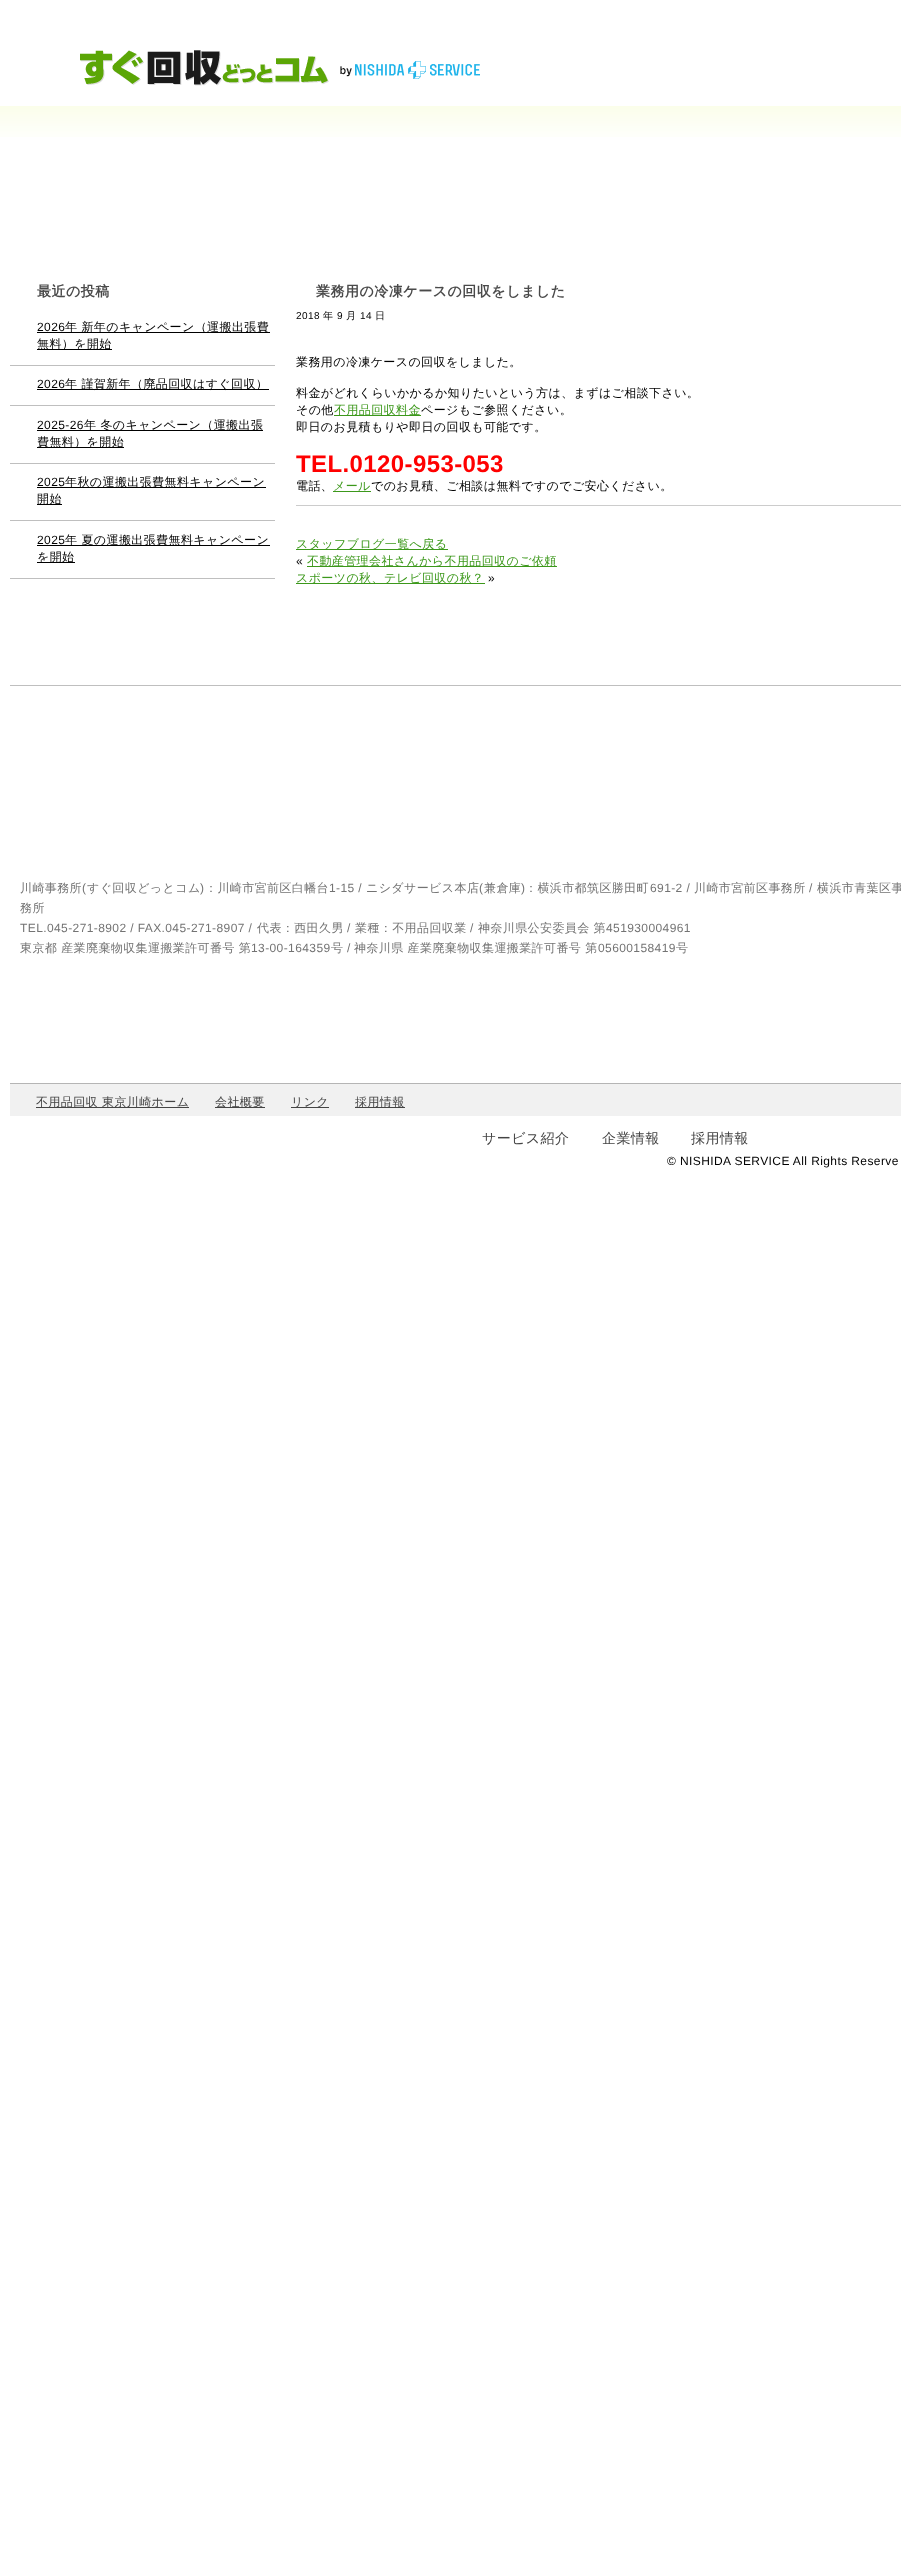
<svg xmlns="http://www.w3.org/2000/svg" width="901" height="2555" viewBox="0 0 901 2555">
  <rect width="100%" height="100%" fill="#fff"/>
  <image x="0" y="106" width="901" height="31" href="img/1.png"/>
  <image x="80" y="50" width="400" height="36" href="img/2.png"/>
  <path d="M10 365h265v1H10z" fill="#bfbfbf"/>
  <path d="M37 332h233v1H37z" fill="#000"/>
  <path d="M37 349h75v1H37z" fill="#000"/>
  <path d="M10 405h265v1H10z" fill="#bfbfbf"/>
  <path d="M37 389h232v1H37z" fill="#000"/>
  <path d="M10 463h265v1H10z" fill="#bfbfbf"/>
  <path d="M37 430h226v1H37z" fill="#000"/>
  <path d="M37 447h87v1H37z" fill="#000"/>
  <path d="M10 520h265v1H10z" fill="#bfbfbf"/>
  <path d="M37 487h229v1H37z" fill="#000"/>
  <path d="M37 504h25v1H37z" fill="#000"/>
  <path d="M10 578h265v1H10z" fill="#bfbfbf"/>
  <path d="M37 545h233v1H37z" fill="#000"/>
  <path d="M37 562h38v1H37z" fill="#000"/>
  <path d="M296 505h605v1H296z" fill="#ccc"/>
  <path d="M334 415h87v1H334z" fill="#3c981b"/>
  <path d="M333 491h38v1H333z" fill="#3c981b"/>
  <path d="M296 549h152v1H296z" fill="#3c981b"/>
  <path d="M307 566h250v1H307z" fill="#3c981b"/>
  <path d="M296 583h189v1H296z" fill="#3c981b"/>
  <path d="M10 685h891v1H10z" fill="#bfbfbf"/>
  <path d="M10 1084h891v32H10z" fill="#f1f1f1"/>
  <path d="M10 1083h891v1H10z" fill="#b5b5b5"/>
  <path d="M36 1107h153v1H36z" fill="#444"/>
  <path d="M215 1107h50v1H215z" fill="#444"/>
  <path d="M291 1107h38v1H291z" fill="#444"/>
  <path d="M355 1107h50v1H355z" fill="#444"/>
  <text x="37" y="296" font-family="WenQuanYi Zen Hei" font-size="14" font-weight="bold" letter-spacing="0.5" fill="#4a4a4a">最近の投稿</text>
  <text x="37" y="331" font-family="Liberation Sans" font-size="12" letter-spacing="0.4" fill="#000">2026</text>
  <g font-family="WenQuanYi Zen Hei" font-size="12" font-weight="500" letter-spacing="0.4" fill="#000">
    <text x="65" y="331">年 新年のキャンペーン（運搬出張費</text>
    <text x="37" y="348">無料）を開始</text>
  </g>
  <text x="37" y="388" font-family="Liberation Sans" font-size="12" letter-spacing="0.4" fill="#000">2026</text>
  <text x="65" y="388" font-family="WenQuanYi Zen Hei" font-size="12" font-weight="500" letter-spacing="0.4" fill="#000">年 謹賀新年（廃品回収はすぐ回収）</text>
  <text x="37" y="429" font-family="Liberation Sans" font-size="12" letter-spacing="0.4" fill="#000">2025-26</text>
  <g font-family="WenQuanYi Zen Hei" font-size="12" font-weight="500" letter-spacing="0.4" fill="#000">
    <text x="84" y="429">年 冬のキャンペーン（運搬出張</text>
    <text x="37" y="446">費無料）を開始</text>
  </g>
  <text x="37" y="486" font-family="Liberation Sans" font-size="12" letter-spacing="0.4" fill="#000">2025</text>
  <g font-family="WenQuanYi Zen Hei" font-size="12" font-weight="500" letter-spacing="0.4" fill="#000">
    <text x="65" y="486">年秋の運搬出張費無料キャンペーン</text>
    <text x="37" y="503">開始</text>
  </g>
  <text x="37" y="544" font-family="Liberation Sans" font-size="12" letter-spacing="0.4" fill="#000">2025</text>
  <g font-family="WenQuanYi Zen Hei" font-size="12" font-weight="500" letter-spacing="0.4" fill="#000">
    <text x="65" y="544">年 夏の運搬出張費無料キャンペーン</text>
    <text x="37" y="561">を開始</text>
  </g>
  <text x="316" y="296" font-family="WenQuanYi Zen Hei" font-size="14" font-weight="bold" letter-spacing="0.5" fill="#4a4a4a">業務用の冷凍ケースの回収をしました</text>
  <text x="296" y="319" font-family="Liberation Sans" font-size="10" letter-spacing="0.4" fill="#000">2018</text>
  <text x="323" y="319" font-family="WenQuanYi Zen Hei" font-size="10" font-weight="500" letter-spacing="0.4" fill="#000">年</text>
  <text x="337" y="319" font-family="Liberation Sans" font-size="10" letter-spacing="0.4" fill="#000">9</text>
  <text x="346" y="319" font-family="WenQuanYi Zen Hei" font-size="10" font-weight="500" letter-spacing="0.4" fill="#000">月</text>
  <text x="360" y="319" font-family="Liberation Sans" font-size="10" letter-spacing="0.4" fill="#000">14</text>
  <text x="375" y="319" font-family="WenQuanYi Zen Hei" font-size="10" font-weight="500" letter-spacing="0.4" fill="#000">日</text>
  <g font-family="WenQuanYi Zen Hei" font-size="12" font-weight="500" letter-spacing="0.4" fill="#000">
    <text x="296" y="366">業務用の冷凍ケースの回収をしました。</text>
    <text x="296" y="397">料金がどれくらいかかるか知りたいという方は、まずはご相談下さい。</text>
    <text x="296" y="414">その他</text>
  </g>
  <text x="334" y="414" font-family="WenQuanYi Zen Hei" font-size="12" font-weight="500" letter-spacing="0.4" fill="#3c981b">不用品回収料金</text>
  <g font-family="WenQuanYi Zen Hei" font-size="12" font-weight="500" letter-spacing="0.4" fill="#000">
    <text x="421" y="414">ページもご参照ください。</text>
    <text x="296" y="431">即日のお見積もりや即日の回収も可能です。</text>
  </g>
  <text x="296" y="472" font-family="Liberation Sans" font-size="24" font-weight="bold" letter-spacing="0.4" fill="#f00">TEL.0120-953-053</text>
  <text x="296" y="490" font-family="WenQuanYi Zen Hei" font-size="12" font-weight="500" letter-spacing="0.4" fill="#000">電話、</text>
  <text x="333" y="490" font-family="WenQuanYi Zen Hei" font-size="12" font-weight="500" letter-spacing="0.4" fill="#3c981b">メール</text>
  <text x="371" y="490" font-family="WenQuanYi Zen Hei" font-size="12" font-weight="500" letter-spacing="0.4" fill="#000">でのお見積、ご相談は無料ですのでご安心ください。</text>
  <text x="296" y="548" font-family="WenQuanYi Zen Hei" font-size="12" font-weight="500" letter-spacing="0.4" fill="#3c981b">スタッフブログ一覧へ戻る</text>
  <text x="296" y="565" font-family="Liberation Sans" font-size="12" letter-spacing="0.4" fill="#000">«</text>
  <g font-family="WenQuanYi Zen Hei" font-size="12" font-weight="500" letter-spacing="0.4" fill="#3c981b">
    <text x="307" y="565">不動産管理会社さんから不用品回収のご依頼</text>
    <text x="296" y="582">スポーツの秋、テレビ回収の秋？</text>
  </g>
  <text x="488" y="582" font-family="Liberation Sans" font-size="12" letter-spacing="0.4" fill="#000">»</text>
  <text x="20" y="892" font-family="WenQuanYi Zen Hei" font-size="12" font-weight="500" letter-spacing="0.4" fill="#737373">川崎事務所</text>
  <text x="82" y="892" font-family="Liberation Sans" font-size="12" letter-spacing="0.4" fill="#737373">(</text>
  <text x="87" y="892" font-family="WenQuanYi Zen Hei" font-size="12" font-weight="500" letter-spacing="0.4" fill="#737373">すぐ回収どっとコム</text>
  <text x="200" y="892" font-family="Liberation Sans" font-size="12" letter-spacing="0.4" fill="#737373">)</text>
  <text x="205" y="892" font-family="WenQuanYi Zen Hei" font-size="12" font-weight="500" letter-spacing="0.4" fill="#737373">：川崎市宮前区白幡台</text>
  <text x="329" y="892" font-family="Liberation Sans" font-size="12" letter-spacing="0.4" fill="#737373">1-15 /</text>
  <text x="366" y="892" font-family="WenQuanYi Zen Hei" font-size="12" font-weight="500" letter-spacing="0.4" fill="#737373">ニシダサービス本店</text>
  <text x="479" y="892" font-family="Liberation Sans" font-size="12" letter-spacing="0.4" fill="#737373">(</text>
  <text x="484" y="892" font-family="WenQuanYi Zen Hei" font-size="12" font-weight="500" letter-spacing="0.4" fill="#737373">兼倉庫</text>
  <text x="521" y="892" font-family="Liberation Sans" font-size="12" letter-spacing="0.4" fill="#737373">)</text>
  <text x="525" y="892" font-family="WenQuanYi Zen Hei" font-size="12" font-weight="500" letter-spacing="0.4" fill="#737373">：横浜市都筑区勝田町</text>
  <text x="650" y="892" font-family="Liberation Sans" font-size="12" letter-spacing="0.4" fill="#737373">691-2 /</text>
  <text x="694" y="892" font-family="WenQuanYi Zen Hei" font-size="12" font-weight="500" letter-spacing="0.4" fill="#737373">川崎市宮前区事務所</text>
  <text x="809" y="892" font-family="Liberation Sans" font-size="12" letter-spacing="0.4" fill="#737373">/</text>
  <g font-family="WenQuanYi Zen Hei" font-size="12" font-weight="500" letter-spacing="0.4" fill="#737373">
    <text x="817" y="892">横浜市青葉区事</text>
    <text x="20" y="912">務所</text>
  </g>
  <text x="20" y="932" font-family="Liberation Sans" font-size="12" letter-spacing="0.4" fill="#737373">TEL.045-271-8902 / FAX.045-271-8907 /</text>
  <text x="257" y="932" font-family="WenQuanYi Zen Hei" font-size="12" font-weight="500" letter-spacing="0.4" fill="#737373">代表：西田久男</text>
  <text x="347" y="932" font-family="Liberation Sans" font-size="12" letter-spacing="0.4" fill="#737373">/</text>
  <text x="355" y="932" font-family="WenQuanYi Zen Hei" font-size="12" font-weight="500" letter-spacing="0.4" fill="#737373">業種：不用品回収業</text>
  <text x="470" y="932" font-family="Liberation Sans" font-size="12" letter-spacing="0.4" fill="#737373">/</text>
  <text x="478" y="932" font-family="WenQuanYi Zen Hei" font-size="12" font-weight="500" letter-spacing="0.4" fill="#737373">神奈川県公安委員会 第</text>
  <text x="606" y="932" font-family="Liberation Sans" font-size="12" letter-spacing="0.4" fill="#737373">451930004961</text>
  <text x="20" y="952" font-family="WenQuanYi Zen Hei" font-size="12" font-weight="500" letter-spacing="0.4" fill="#737373">東京都 産業廃棄物収集運搬業許可番号 第</text>
  <text x="251" y="952" font-family="Liberation Sans" font-size="12" letter-spacing="0.4" fill="#737373">13-00-164359</text>
  <text x="331" y="952" font-family="WenQuanYi Zen Hei" font-size="12" font-weight="500" letter-spacing="0.4" fill="#737373">号</text>
  <text x="347" y="952" font-family="Liberation Sans" font-size="12" letter-spacing="0.4" fill="#737373">/</text>
  <text x="354" y="952" font-family="WenQuanYi Zen Hei" font-size="12" font-weight="500" letter-spacing="0.4" fill="#737373">神奈川県 産業廃棄物収集運搬業許可番号 第</text>
  <text x="598" y="952" font-family="Liberation Sans" font-size="12" letter-spacing="0.4" fill="#737373">05600158419</text>
  <text x="676" y="952" font-family="WenQuanYi Zen Hei" font-size="12" font-weight="500" letter-spacing="0.4" fill="#737373">号</text>
  <g font-family="WenQuanYi Zen Hei" font-size="12" font-weight="500" letter-spacing="0.4" fill="#444">
    <text x="36" y="1106">不用品回収 東京川崎ホーム</text>
    <text x="215" y="1106">会社概要</text>
    <text x="291" y="1106">リンク</text>
    <text x="355" y="1106">採用情報</text>
  </g>
  <g font-family="WenQuanYi Zen Hei" font-size="14" font-weight="500" letter-spacing="0.4" fill="#444">
    <text x="482" y="1143">サービス紹介</text>
    <text x="602" y="1143">企業情報</text>
    <text x="691" y="1143">採用情報</text>
  </g>
  <text x="667" y="1165" font-family="Liberation Sans" font-size="12" letter-spacing="0.4" fill="#000">© NISHIDA SERVICE All Rights Reserve</text>
</svg>
